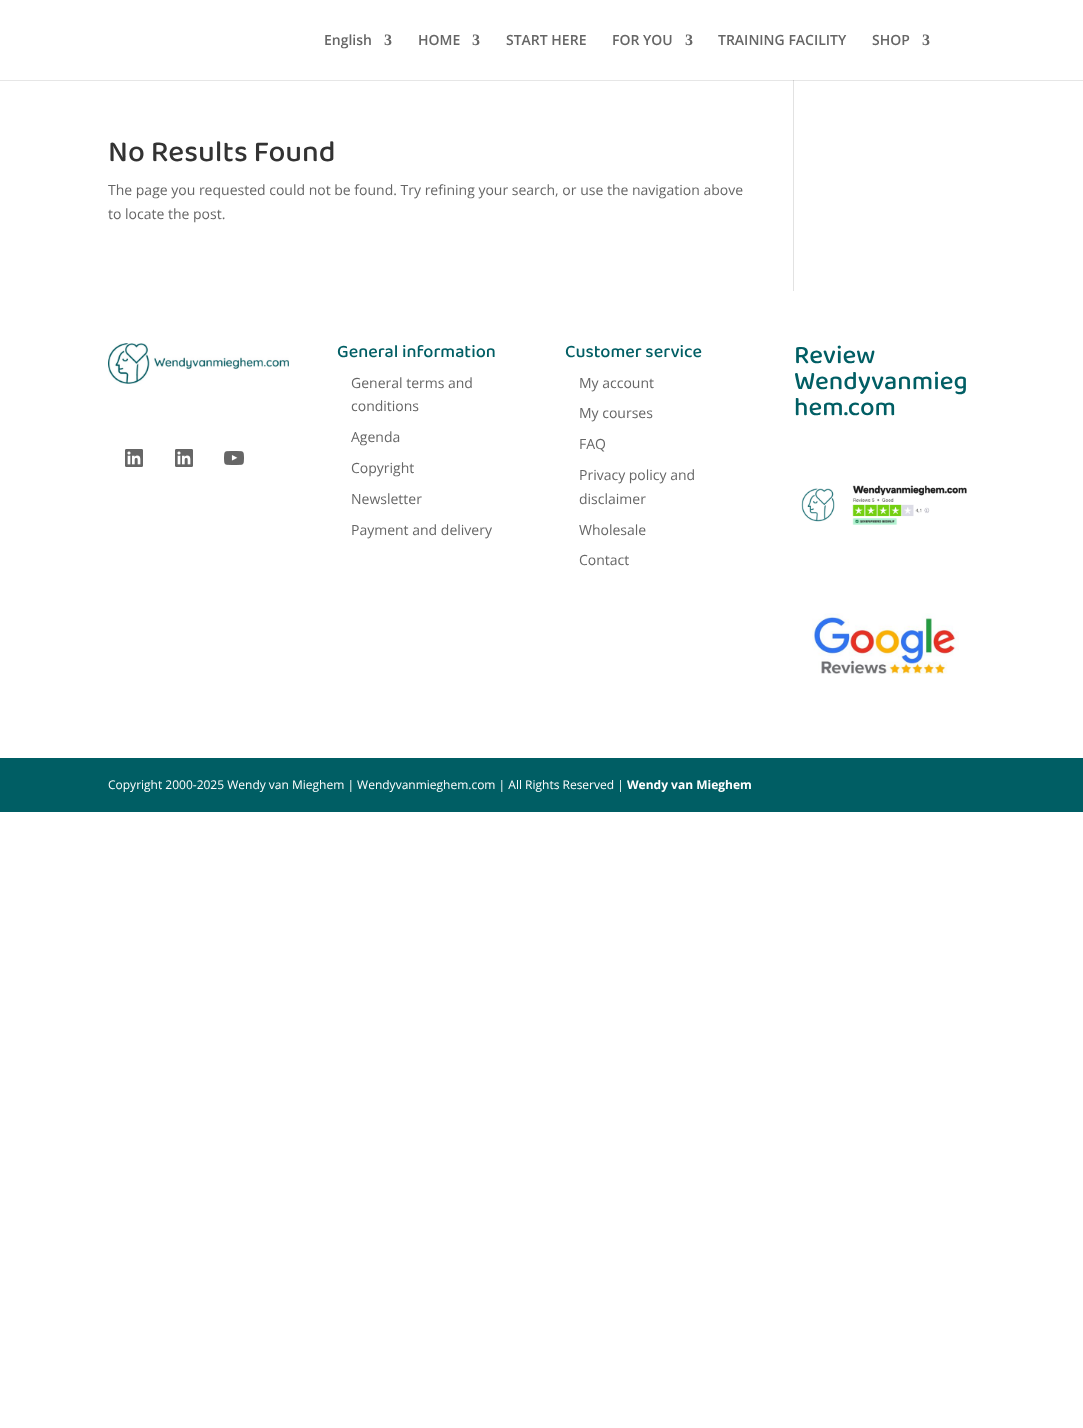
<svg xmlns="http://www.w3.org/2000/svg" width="1083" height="1428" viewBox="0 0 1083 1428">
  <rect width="100%" height="100%" fill="#fff"/>
  <path d="M0 80h1083v1H0z" fill="#e6e6e6"/>
  <path d="M793 80h1v211H793z" fill="#e2e2e2"/>
  <path d="M793 80h1v1H793z" fill="#cbcbcb"/>
  <image x="108" y="343" width="181" height="41" href="img/1.png"/>
  <image x="125" y="449" width="18" height="18" href="img/2.png"/>
  <image x="175" y="449" width="18" height="18" href="img/2.png"/>
  <image x="224" y="451" width="20" height="14" href="img/3.png"/>
  <image x="801" y="485" width="166" height="40" href="img/4.png"/>
  <image x="812" y="613" width="147" height="61" href="img/5.png"/>
  <path d="M0 758h1083v54H0z" fill="#005e64"/>
  <text x="324" y="45" font-family="Open Sans" font-size="14" font-weight="600" fill="#666">English</text>
  <text x="384" y="45" font-family="Liberation Serif" font-size="16" font-weight="bold" fill="#666">3</text>
  <text x="418" y="45" font-family="Open Sans" font-size="14" font-weight="600" fill="#666">HOME</text>
  <text x="472" y="45" font-family="Liberation Serif" font-size="16" font-weight="bold" fill="#666">3</text>
  <g font-family="Open Sans" font-size="14" font-weight="600" fill="#666">
    <text x="506" y="45">START HERE</text>
    <text x="612" y="45">FOR YOU</text>
  </g>
  <text x="685" y="45" font-family="Liberation Serif" font-size="16" font-weight="bold" fill="#666">3</text>
  <g font-family="Open Sans" font-size="14" font-weight="600" fill="#666">
    <text x="718" y="45">TRAINING FACILITY</text>
    <text x="872" y="45">SHOP</text>
  </g>
  <text x="922" y="45" font-family="Liberation Serif" font-size="16" font-weight="bold" fill="#666">3</text>
  <text x="108" y="161" font-family="'Baloo 2'" font-size="30" font-weight="500" fill="#333">No Results Found</text>
  <g font-family="Open Sans" font-size="14" fill="#666">
    <text x="108" y="195">The page you requested could not be found. Try refining your search, or use the navigation above</text>
    <text x="108" y="219">to locate the post.</text>
  </g>
  <text x="337" y="357" font-family="'Baloo 2'" font-size="18" font-weight="500" fill="#005e64">General information</text>
  <g font-family="Open Sans" font-size="14" fill="#666">
    <text x="351" y="388">General terms and</text>
    <text x="351" y="411">conditions</text>
    <text x="351" y="442">Agenda</text>
    <text x="351" y="473">Copyright</text>
    <text x="351" y="504">Newsletter</text>
    <text x="351" y="535">Payment and delivery</text>
  </g>
  <text x="565" y="357" font-family="'Baloo 2'" font-size="18" font-weight="500" fill="#005e64">Customer service</text>
  <g font-family="Open Sans" font-size="14" fill="#666">
    <text x="579" y="388">My account</text>
    <text x="579" y="418">My courses</text>
    <text x="579" y="449">FAQ</text>
    <text x="579" y="480">Privacy policy and</text>
    <text x="579" y="504">disclaimer</text>
    <text x="579" y="535">Wholesale</text>
    <text x="579" y="565">Contact</text>
  </g>
  <g font-family="'Baloo 2'" font-size="26" font-weight="500" fill="#005e64">
    <text x="794" y="363">Review</text>
    <text x="794" y="389">Wendyvanmieg</text>
    <text x="794" y="415">hem.com</text>
  </g>
  <text x="108" y="789" font-family="Open Sans" font-size="12" fill="#fff">Copyright 2000-2025 Wendy van Mieghem | Wendyvanmieghem.com | All Rights Reserved |</text>
  <text x="627" y="789" font-family="Open Sans" font-size="12" font-weight="bold" fill="#fff">Wendy van Mieghem</text>
</svg>
